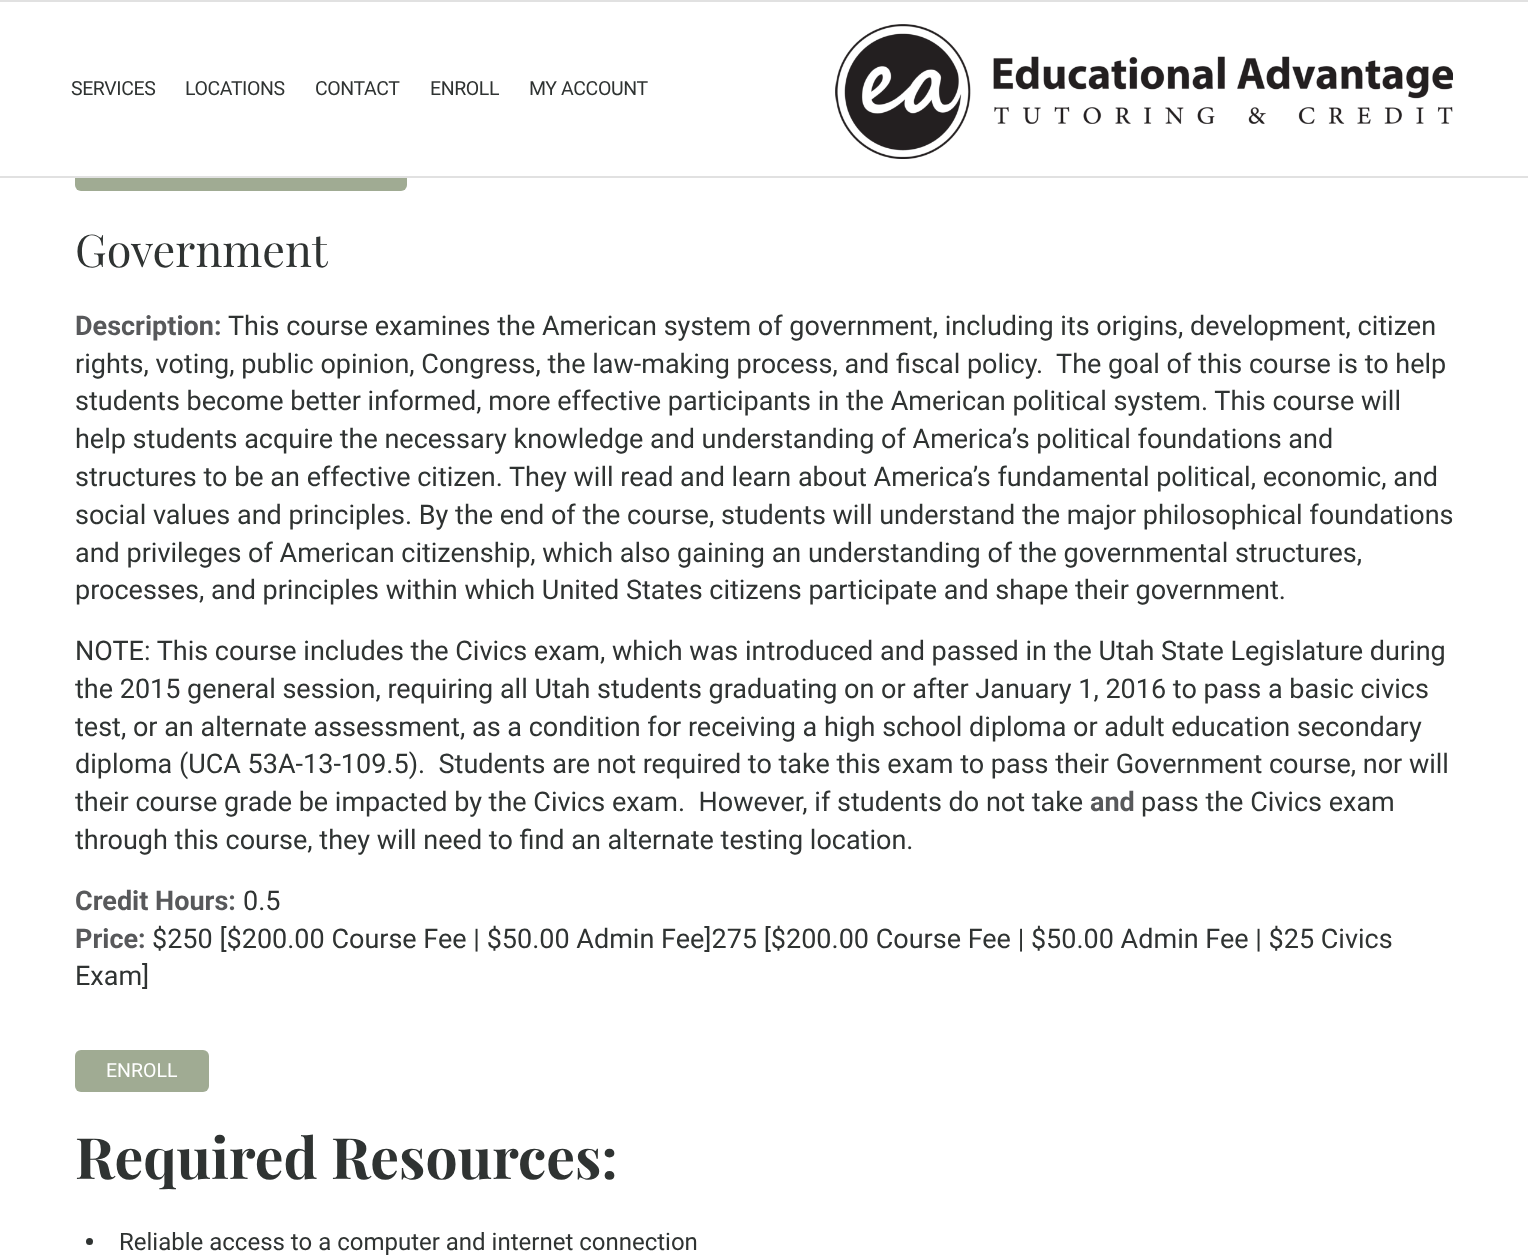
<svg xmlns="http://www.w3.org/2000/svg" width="1528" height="1257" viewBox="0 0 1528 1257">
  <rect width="100%" height="100%" fill="#fff"/>
  <rect x="75" y="147" width="332" height="44" rx="6" fill="#a0ab93"/>
  <path d="M75 147h332v29H75z" fill="#fff"/>
  <path d="M0 0h1528v2H0z" fill="#e1e1e1"/>
  <path d="M0 176h1528v2H0z" fill="#e1e1e1"/>
  <image x="835" y="24" width="618" height="135" href="img/1.png"/>
  <rect x="75" y="1050" width="134" height="42" rx="6" fill="#a0ab93"/>
  <circle cx="89.5" cy="1241.5" r="3.5" fill="#2f3332"/>
  <g font-family="Roboto" font-size="19.5" letter-spacing="-0.4" fill="#2f3332">
    <text x="71" y="95">SERVICES</text>
    <text x="185" y="95">LOCATIONS</text>
    <text x="315" y="95">CONTACT</text>
    <text x="430" y="95">ENROLL</text>
    <text x="529" y="95">MY ACCOUNT</text>
  </g>
  <text x="75" y="267" font-family="Playfair Display" font-size="45" fill="#2f3332">Government</text>
  <text x="75" y="335" font-family="Roboto" font-size="27" font-weight="bold" fill="#58595b">Description:</text>
  <g font-family="Roboto" font-size="27" fill="#2f3332">
    <text x="228" y="335">This course examines the American system of government, including its origins, development, citizen</text>
    <text x="75" y="373" xml:space="preserve">rights, voting, public opinion, Congress, the law-making process, and fiscal policy.  The goal of this course is to help</text>
    <text x="75" y="410">students become better informed, more effective participants in the American political system. This course will</text>
    <text x="75" y="448">help students acquire the necessary knowledge and understanding of America’s political foundations and</text>
    <text x="75" y="486">structures to be an effective citizen. They will read and learn about America’s fundamental political, economic, and</text>
    <text x="75" y="524">social values and principles. By the end of the course, students will understand the major philosophical foundations</text>
    <text x="75" y="562">and privileges of American citizenship, which also gaining an understanding of the governmental structures,</text>
    <text x="75" y="599">processes, and principles within which United States citizens participate and shape their government.</text>
    <text x="75" y="660">NOTE: This course includes the Civics exam, which was introduced and passed in the Utah State Legislature during</text>
    <text x="75" y="698">the 2015 general session, requiring all Utah students graduating on or after January 1, 2016 to pass a basic civics</text>
    <text x="75" y="736">test, or an alternate assessment, as a condition for receiving a high school diploma or adult education secondary</text>
    <text x="75" y="773" xml:space="preserve">diploma (UCA 53A-13-109.5).  Students are not required to take this exam to pass their Government course, nor will</text>
    <text x="75" y="811" xml:space="preserve">their course grade be impacted by the Civics exam.  However, if students do not take</text>
  </g>
  <text x="1090" y="811" font-family="Roboto" font-size="27" font-weight="bold" fill="#58595b">and</text>
  <g font-family="Roboto" font-size="27" fill="#2f3332">
    <text x="1141" y="811">pass the Civics exam</text>
    <text x="75" y="849">through this course, they will need to find an alternate testing location.</text>
  </g>
  <text x="75" y="910" font-family="Roboto" font-size="27" font-weight="bold" fill="#58595b">Credit Hours:</text>
  <text x="243" y="910" font-family="Roboto" font-size="27" fill="#2f3332">0.5</text>
  <text x="75" y="948" font-family="Roboto" font-size="27" font-weight="bold" fill="#58595b">Price:</text>
  <g font-family="Roboto" font-size="27" fill="#2f3332">
    <text x="152" y="948">$250 [$200.00 Course Fee | $50.00 Admin Fee]275 [$200.00 Course Fee | $50.00 Admin Fee | $25 Civics</text>
    <text x="75" y="985">Exam]</text>
  </g>
  <text x="106" y="1077" font-family="Roboto" font-size="19.5" fill="#fff">ENROLL</text>
  <text x="75" y="1179" font-family="Playfair Display" font-size="57" font-weight="bold" fill="#2f3332">Required Resources:</text>
  <text x="119" y="1250" font-family="Roboto" font-size="24" fill="#2f3332">Reliable access to a computer and internet connection</text>
</svg>
